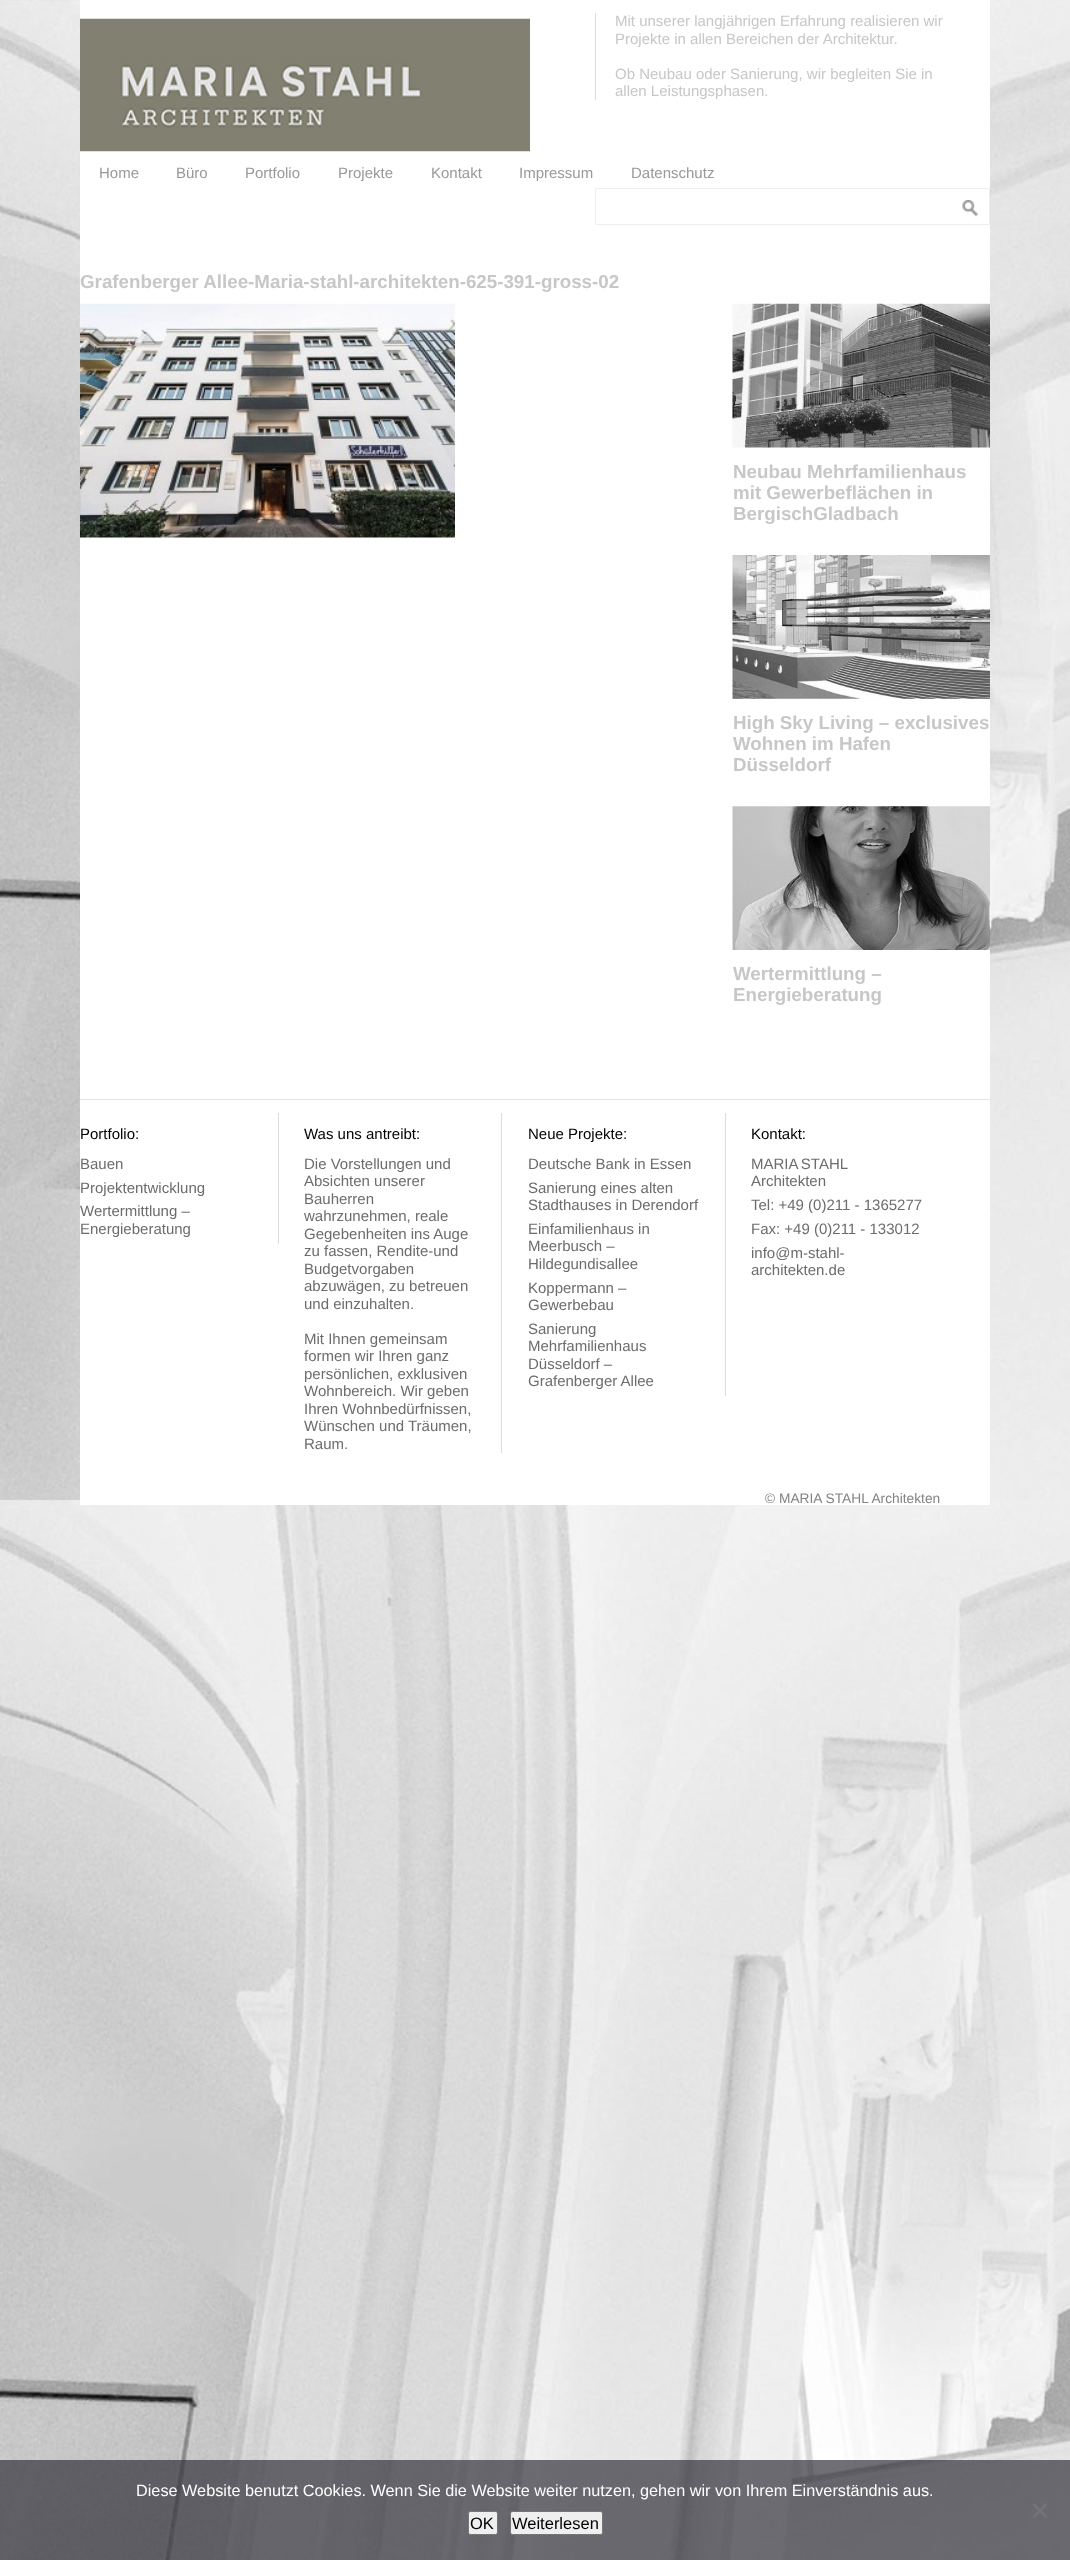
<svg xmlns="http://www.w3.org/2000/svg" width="1070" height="2560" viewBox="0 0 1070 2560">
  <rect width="100%" height="100%" fill="#fff"/>
  <image x="0" y="0" width="1070" height="2560" href="img/1.png"/>
  <path d="M80 0h910v1505H80z" fill="#fff"/>
  <image x="80" y="18" width="450" height="134" href="img/2.png"/>
  <path d="M595 13h1v87H595z" fill="#ddd"/>
  <path d="M595.5 188.5h394v36H595.5z" fill="none" stroke="#eee"/>
  <image x="962" y="200" width="16" height="17" href="img/3.png"/>
  <image x="80" y="303" width="375" height="235" href="img/4.png"/>
  <image x="732" y="303" width="258" height="145" href="img/5.png"/>
  <image x="732" y="555" width="258" height="144" href="img/6.png"/>
  <image x="732" y="806" width="258" height="144" href="img/7.png"/>
  <path d="M80 1099h910v1H80z" fill="#e5e5e5"/>
  <path d="M278 1113h1v131H278z" fill="#ddd"/>
  <path d="M501 1113h1v340H501z" fill="#ddd"/>
  <path d="M725 1113h1v283H725z" fill="#ddd"/>
  <path d="M0 2460h1070v100H0z" fill="#32323ab3"/>
  <path d="M1045.5 2503L1047.5 2505L1034.5 2518L1032.5 2516.5Z" fill="#747477"/>
  <path d="M1032.5 2505L1034.5 2503L1047.5 2516.5L1045.5 2518Z" fill="#747477"/>
  <rect x="468.5" y="2511.5" width="29" height="23" rx="2" fill="#efefef" stroke="#767676"/>
  <rect x="510.5" y="2511.5" width="92" height="23" rx="2" fill="#efefef" stroke="#767676"/>
  <g font-family="Liberation Sans" font-size="15" fill="#c7c7c7">
    <text x="615" y="26">Mit unserer langjährigen Erfahrung realisieren wir</text>
    <text x="615" y="44">Projekte in allen Bereichen der Architektur.</text>
    <text x="615" y="79">Ob Neubau oder Sanierung, wir begleiten Sie in</text>
    <text x="615" y="96">allen Leistungsphasen.</text>
  </g>
  <g font-family="Liberation Sans" font-size="15" fill="#999">
    <text x="99" y="178">Home</text>
    <text x="176" y="178">Büro</text>
    <text x="245" y="178">Portfolio</text>
    <text x="338" y="178">Projekte</text>
    <text x="431" y="178">Kontakt</text>
    <text x="519" y="178">Impressum</text>
    <text x="631" y="178">Datenschutz</text>
  </g>
  <g font-family="Liberation Sans" font-size="18.75" font-weight="bold" fill="#c7c7c7">
    <text x="80" y="288">Grafenberger Allee-Maria-stahl-architekten-625-391-gross-02</text>
    <text x="733" y="478">Neubau Mehrfamilienhaus</text>
    <text x="733" y="499">mit Gewerbeflächen in</text>
    <text x="733" y="520">BergischGladbach</text>
    <text x="733" y="729">High Sky Living – exclusives</text>
    <text x="733" y="750">Wohnen im Hafen</text>
    <text x="733" y="771">Düsseldorf</text>
    <text x="733" y="980">Wertermittlung –</text>
    <text x="733" y="1001">Energieberatung</text>
  </g>
  <text x="80" y="1139" font-family="Liberation Sans" font-size="15" fill="#010101">Portfolio:</text>
  <g font-family="Liberation Sans" font-size="15" fill="#6c6c6c">
    <text x="80" y="1169">Bauen</text>
    <text x="80" y="1193">Projektentwicklung</text>
    <text x="80" y="1216">Wertermittlung –</text>
    <text x="80" y="1234">Energieberatung</text>
  </g>
  <text x="304" y="1139" font-family="Liberation Sans" font-size="15" fill="#010101">Was uns antreibt:</text>
  <g font-family="Liberation Sans" font-size="15" fill="#6c6c6c">
    <text x="304" y="1169">Die Vorstellungen und</text>
    <text x="304" y="1186">Absichten unserer</text>
    <text x="304" y="1204">Bauherren</text>
    <text x="304" y="1221">wahrzunehmen, reale</text>
    <text x="304" y="1239">Gegebenheiten ins Auge</text>
    <text x="304" y="1256">zu fassen, Rendite-und</text>
    <text x="304" y="1274">Budgetvorgaben</text>
    <text x="304" y="1291">abzuwägen, zu betreuen</text>
    <text x="304" y="1309">und einzuhalten.</text>
    <text x="304" y="1344">Mit Ihnen gemeinsam</text>
    <text x="304" y="1361">formen wir Ihren ganz</text>
    <text x="304" y="1379">persönlichen, exklusiven</text>
    <text x="304" y="1396">Wohnbereich. Wir geben</text>
    <text x="304" y="1414">Ihren Wohnbedürfnissen,</text>
    <text x="304" y="1431">Wünschen und Träumen,</text>
    <text x="304" y="1449">Raum.</text>
  </g>
  <text x="528" y="1139" font-family="Liberation Sans" font-size="15" fill="#010101">Neue Projekte:</text>
  <g font-family="Liberation Sans" font-size="15" fill="#6c6c6c">
    <text x="528" y="1169">Deutsche Bank in Essen</text>
    <text x="528" y="1193">Sanierung eines alten</text>
    <text x="528" y="1210">Stadthauses in Derendorf</text>
    <text x="528" y="1234">Einfamilienhaus in</text>
    <text x="528" y="1251">Meerbusch –</text>
    <text x="528" y="1269">Hildegundisallee</text>
    <text x="528" y="1293">Koppermann –</text>
    <text x="528" y="1310">Gewerbebau</text>
    <text x="528" y="1334">Sanierung</text>
    <text x="528" y="1351">Mehrfamilienhaus</text>
    <text x="528" y="1369">Düsseldorf –</text>
    <text x="528" y="1386">Grafenberger Allee</text>
  </g>
  <text x="751" y="1139" font-family="Liberation Sans" font-size="15" fill="#010101">Kontakt:</text>
  <g font-family="Liberation Sans" font-size="15" fill="#6c6c6c">
    <text x="751" y="1169" word-spacing="-1">MARIA STAHL</text>
    <text x="751" y="1186">Architekten</text>
    <text x="751" y="1210">Tel: +49 (0)211 - 1365277</text>
    <text x="751" y="1234">Fax: +49 (0)211 - 133012</text>
    <text x="751" y="1258">info@m-stahl-</text>
    <text x="751" y="1275">architekten.de</text>
  </g>
  <text x="765" y="1503" font-family="Liberation Sans" font-size="13.75" fill="#838383">© MARIA STAHL Architekten</text>
  <text x="136" y="2496" font-family="Liberation Sans" font-size="16.25" fill="#fff">Diese Website benutzt Cookies. Wenn Sie die Website weiter nutzen, gehen wir von Ihrem Einverständnis aus.</text>
  <g font-family="Liberation Sans" font-size="16.5" fill="#010101">
    <text x="470" y="2529">OK</text>
    <text x="512" y="2529">Weiterlesen</text>
  </g>
</svg>
